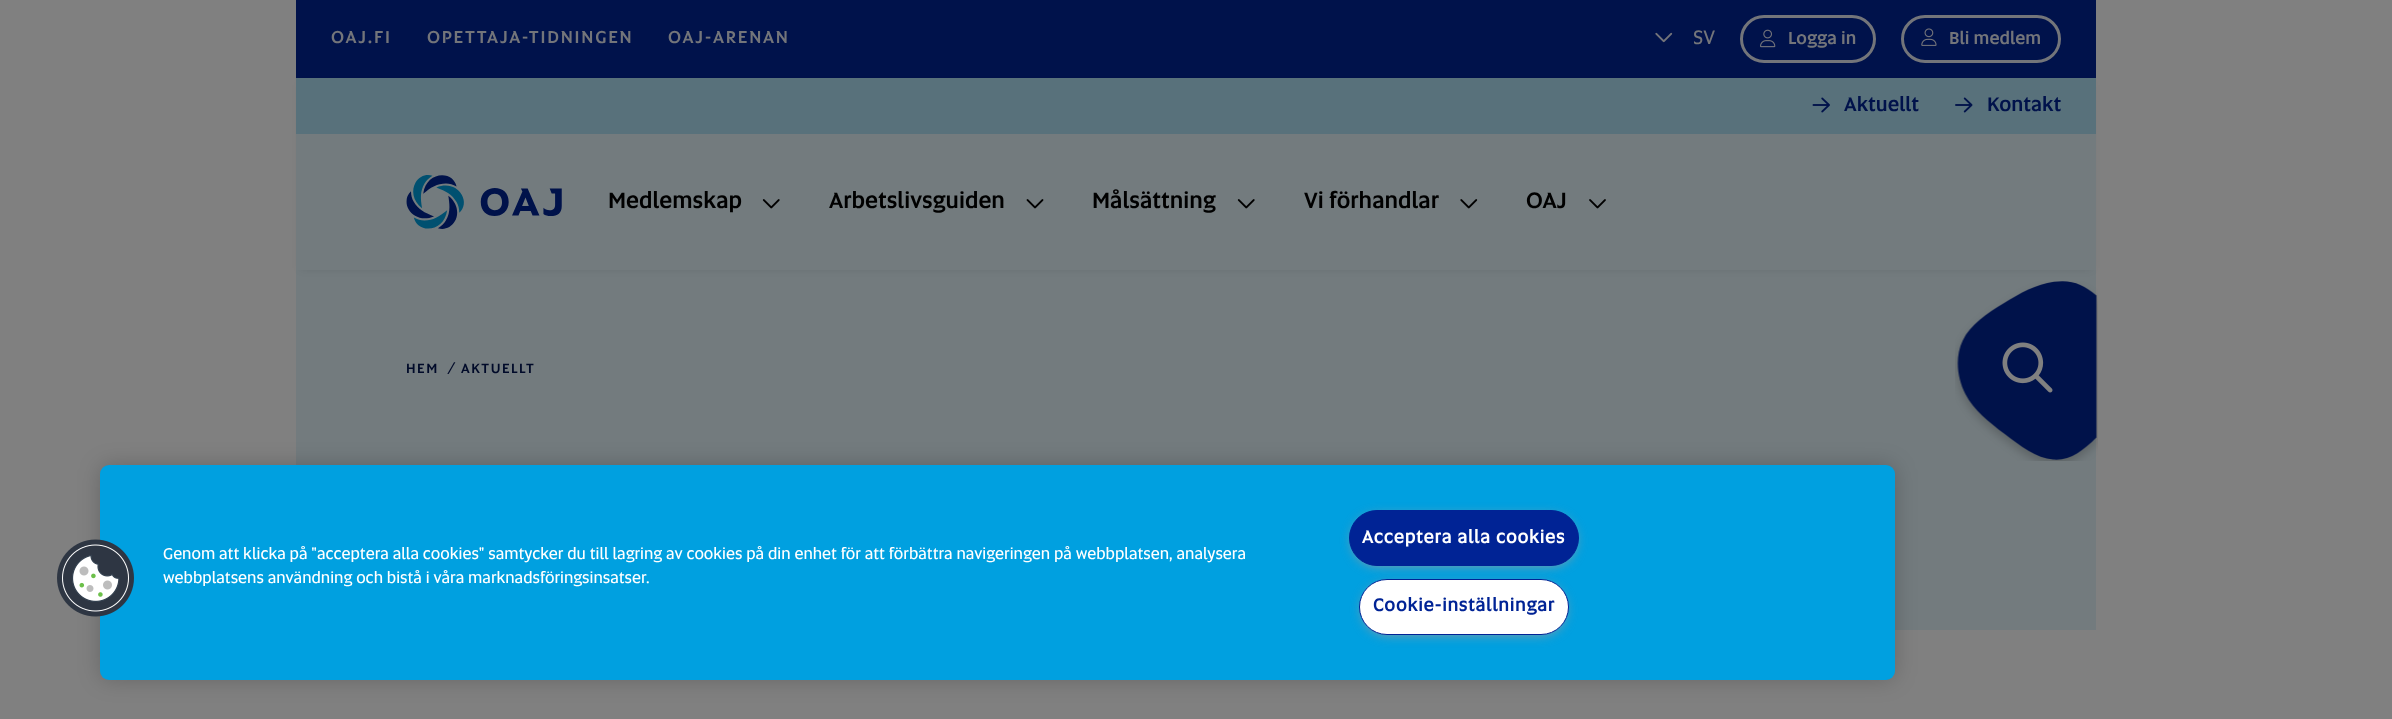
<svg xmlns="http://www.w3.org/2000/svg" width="2392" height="719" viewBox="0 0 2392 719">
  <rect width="100%" height="100%" fill="#808080"/>
  <path d="M296 0h1800v78H296z" fill="#00124b"/>
  <image x="1655" y="32" width="18" height="11" href="img/1.png"/>
  <rect x="1741.5" y="16.5" width="133" height="45" rx="22.5" fill="none" stroke="#73757a" stroke-width="3"/>
  <image x="1760" y="29" width="16" height="19" href="img/2.png"/>
  <rect x="1902.5" y="16.5" width="157" height="45" rx="22.5" fill="none" stroke="#73757a" stroke-width="3"/>
  <image x="1921" y="28" width="16" height="18" href="img/3.png"/>
  <path d="M296 270h1800v360H296z" fill="#737b7e"/>
  <image x="1955" y="281" width="143" height="180" href="img/11.png"/>
  <path d="M301 85h1790v183H301z" fill="#0000001f" filter="blur(5px)"/>
  <path d="M296 134h1800v136H296z" fill="#737b7e"/>
  <path d="M296 78h1800v56H296z" fill="#58717b"/>
  <image x="1812" y="97" width="18" height="16" href="img/4.png"/>
  <image x="1955" y="97" width="18" height="16" href="img/5.png"/>
  <image x="406" y="175" width="156" height="54" href="img/6.png"/>
  <image x="762" y="199" width="18" height="10" href="img/7.png"/>
  <image x="1026" y="199" width="18" height="10" href="img/8.png"/>
  <image x="1237" y="199" width="18" height="10" href="img/7.png"/>
  <image x="1460" y="199" width="18" height="10" href="img/9.png"/>
  <image x="1589" y="199" width="17" height="10" href="img/10.png"/>
  <image x="2002" y="342" width="51" height="51" href="img/12.png"/>
  <rect x="100" y="465" width="1795" height="215" rx="9" fill="#00000033" filter="blur(11px)"/>
  <rect x="100" y="465" width="1795" height="215" rx="9" fill="#00a0e0"/>
  <image x="57" y="539" width="77" height="78" href="img/13.png"/>
  <rect x="1353" y="516" width="222" height="49" rx="24.5" fill="#999" filter="blur(6px)"/>
  <rect x="1349.5" y="510.5" width="229" height="55" rx="27.5" fill="#002395" stroke="#002395"/>
  <rect x="1363" y="585" width="202" height="49" rx="24.5" fill="#999" filter="blur(6px)"/>
  <rect x="1359.5" y="579.5" width="209" height="55" rx="27.5" fill="#fff" stroke="#002395"/>
  <g font-family="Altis" font-size="17.5" font-weight="500" letter-spacing="1.75" fill="#73757a">
    <text x="331" y="43">OAJ.FI</text>
    <text x="427" y="43">OPETTAJA-TIDNINGEN</text>
    <text x="668" y="43">OAJ-ARENAN</text>
  </g>
  <text x="1693" y="44" font-family="Altis" font-size="20" fill="#73757a">SV</text>
  <g font-family="Altis" font-size="17.5" font-weight="500" fill="#73757a">
    <text x="1788" y="44">Logga in</text>
    <text x="1949" y="44">Bli medlem</text>
  </g>
  <g font-family="Altis" font-size="20" font-weight="500" fill="#00124b">
    <text x="1844" y="111">Aktuellt</text>
    <text x="1987" y="111">Kontakt</text>
  </g>
  <g font-family="Altis" font-size="22.5" font-weight="500" fill="#000">
    <text x="608" y="208">Medlemskap</text>
    <text x="829" y="208">Arbetslivsguiden</text>
    <text x="1092" y="208">Målsättning</text>
    <text x="1304" y="208">Vi förhandlar</text>
    <text x="1526" y="208">OAJ</text>
  </g>
  <g font-family="Altis" font-size="13.75" font-weight="500" letter-spacing="1.5" fill="#000a29">
    <text x="406" y="373">HEM</text>
    <text x="447" y="373">/</text>
    <text x="461" y="373">AKTUELLT</text>
  </g>
  <g font-family="Altis" font-size="16" fill="#fff">
    <text x="163" y="559">Genom att klicka på "acceptera alla cookies" samtycker du till lagring av cookies på din enhet för att förbättra navigeringen på webbplatsen, analysera</text>
    <text x="163" y="583">webbplatsens användning och bistå i våra marknadsföringsinsatser.</text>
  </g>
  <text x="1362" y="543" font-family="Altis" font-size="18" font-weight="bold" letter-spacing="0.9" fill="#fff">Acceptera alla cookies</text>
  <text x="1373" y="611" font-family="Altis" font-size="18" font-weight="bold" letter-spacing="0.9" fill="#002395">Cookie-inställningar</text>
</svg>
